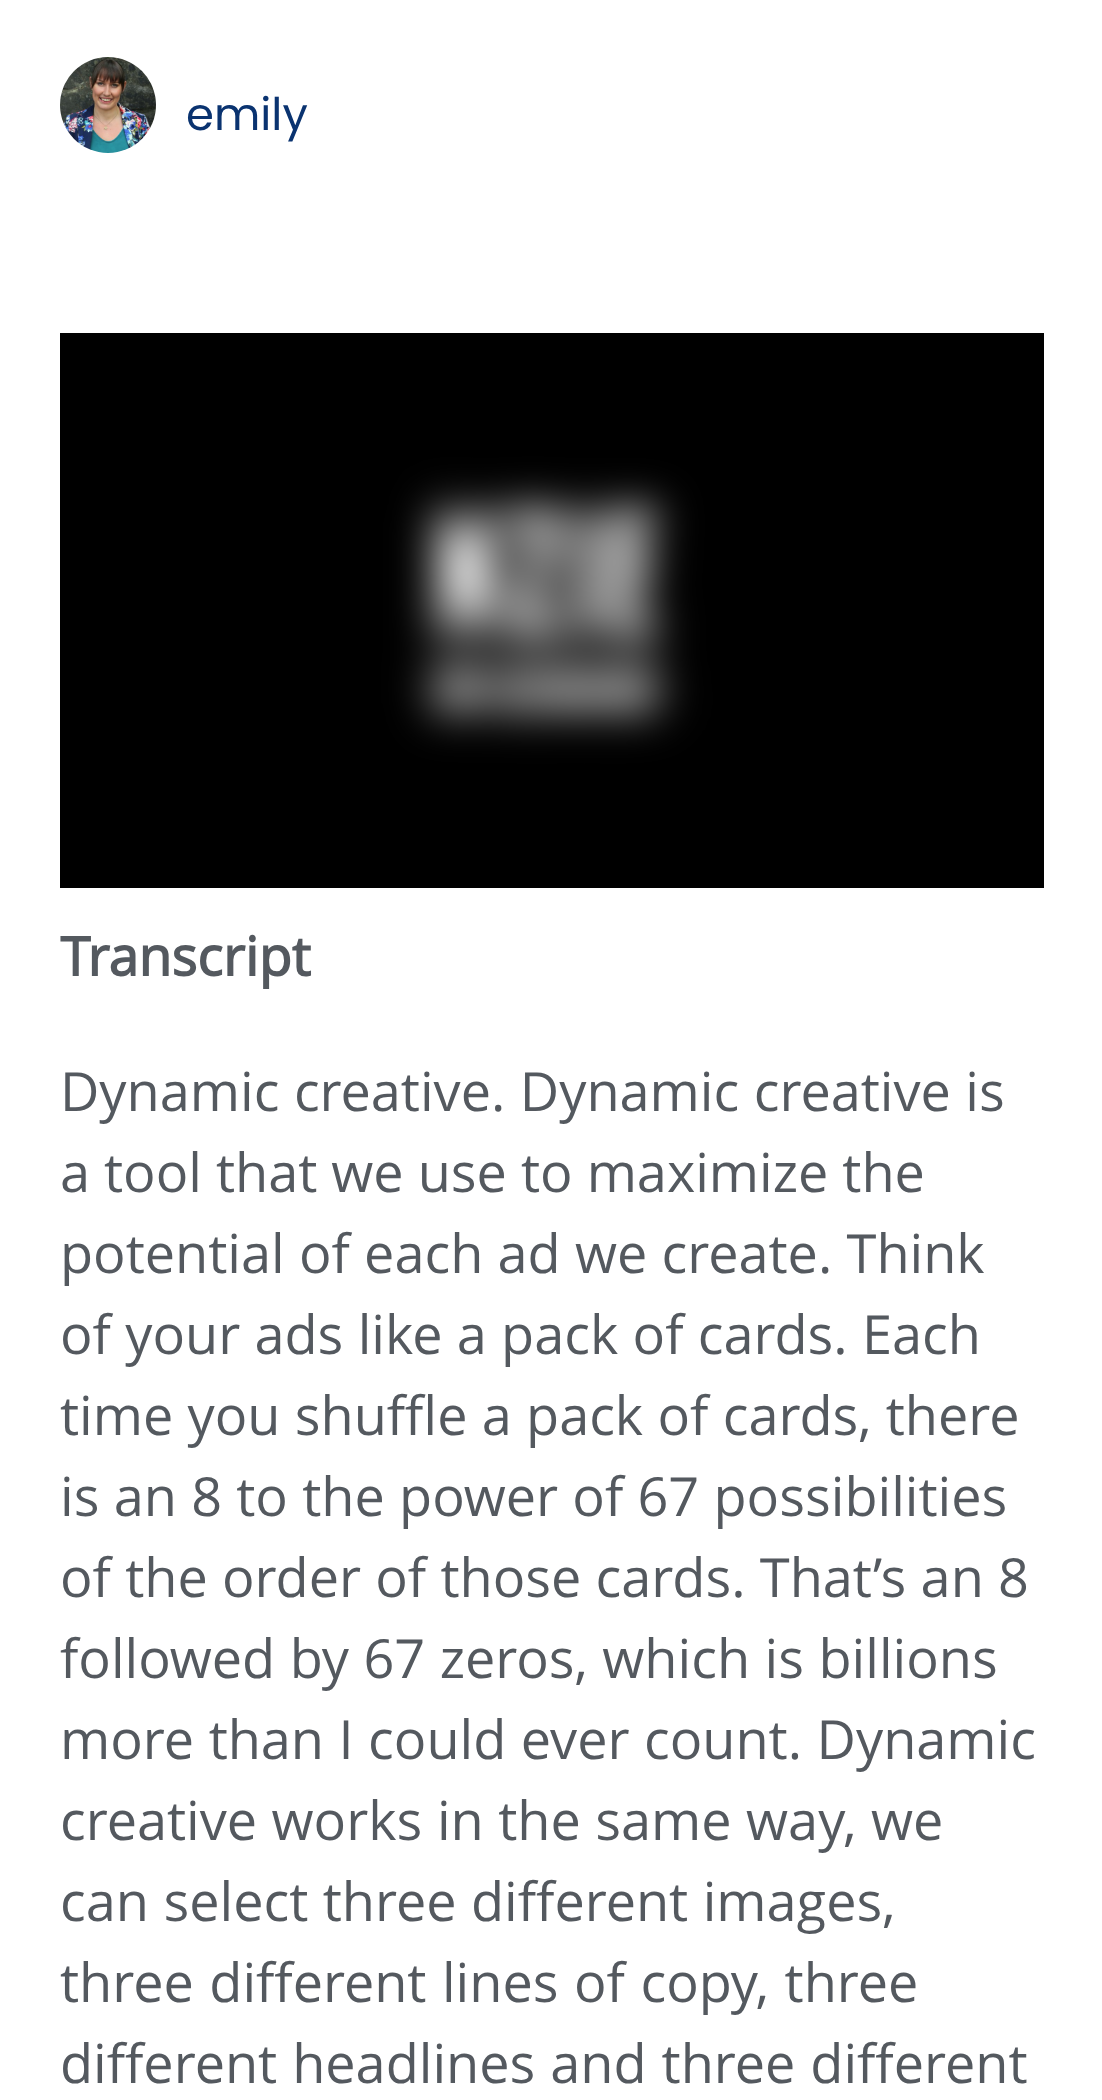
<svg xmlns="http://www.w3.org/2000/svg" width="1102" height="2100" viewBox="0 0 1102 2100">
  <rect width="100%" height="100%" fill="#fff"/>
  <image x="60" y="57" width="96" height="96" href="img/1.png"/>
  <image x="60" y="333" width="984" height="555" href="img/2.png"/>
  <text x="186" y="130" font-family="Poppins" font-size="45" fill="#0a3370">emily</text>
  <text x="60" y="976" font-family="Open Sans" font-size="54" font-weight="bold" fill="#54595f">Transcript</text>
  <g font-family="Open Sans" font-size="54" fill="#54595f">
    <text x="60" y="1111" word-spacing="0.5">Dynamic creative. Dynamic creative is</text>
    <text x="60" y="1192">a tool that we use to maximize the</text>
    <text x="60" y="1273" word-spacing="0.25">potential of each ad we create. Think</text>
    <text x="60" y="1354" word-spacing="0.25">of your ads like a pack of cards. Each</text>
    <text x="60" y="1435" word-spacing="0.25">time you shuffle a pack of cards, there</text>
    <text x="60" y="1516" word-spacing="0.25">is an 8 to the power of 67 possibilities</text>
    <text x="60" y="1597" word-spacing="0.25">of the order of those cards. That’s an 8</text>
    <text x="60" y="1678" word-spacing="0.5">followed by 67 zeros, which is billions</text>
    <text x="60" y="1759" word-spacing="0.5">more than I could ever count. Dynamic</text>
    <text x="60" y="1840" word-spacing="0.5">creative works in the same way, we</text>
    <text x="60" y="1921" word-spacing="0.5">can select three different images,</text>
    <text x="60" y="2002" word-spacing="1.5">three different lines of copy, three</text>
    <text x="60" y="2083" word-spacing="1">different headlines and three different</text>
  </g>
</svg>
